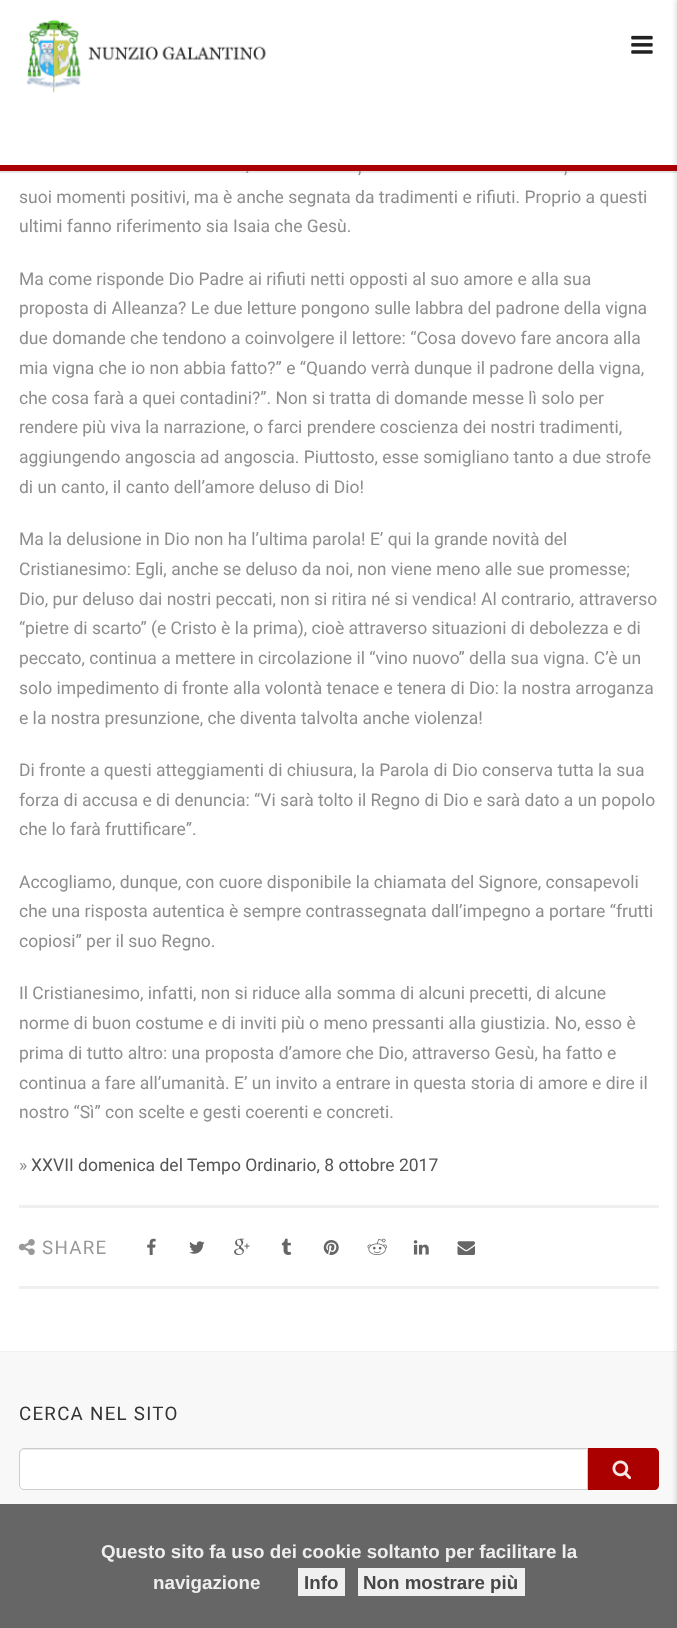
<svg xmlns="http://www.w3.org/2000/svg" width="677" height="1628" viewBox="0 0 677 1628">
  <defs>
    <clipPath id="clip1"><path d="M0 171h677v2H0z"/></clipPath>
  </defs>
  <rect width="100%" height="100%" fill="#fff"/>
  <g clip-path="url(#clip1)">
    <path d="M0 1h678v172H0z" fill="#0000001a" filter="blur(0.5px)"/>
  </g>
  <path d="M0 165h677v6H0z" fill="#a00"/>
  <image x="27" y="19" width="239" height="75" href="img/1.png"/>
  <image x="631" y="35" width="22" height="19" href="img/2.png"/>
  <path d="M19 1205h640v3H19z" fill="#efefef"/>
  <path d="M19 1286h640v3H19z" fill="#efefef"/>
  <image x="18" y="1239" width="17" height="16" href="img/3.png"/>
  <image x="147" y="1238" width="9" height="17" href="img/4.png"/>
  <image x="189" y="1241" width="16" height="13" href="img/5.png"/>
  <image x="234" y="1238" width="16" height="17" href="img/6.png"/>
  <image x="281" y="1238" width="11" height="17" href="img/7.png"/>
  <image x="323" y="1240" width="16" height="15" href="img/8.png"/>
  <image x="367" y="1238" width="20" height="17" href="img/9.png"/>
  <image x="413" y="1240" width="16" height="15" href="img/10.png"/>
  <image x="457" y="1241" width="18" height="14" href="img/11.png"/>
  <path d="M0 1352h677v276H0z" fill="#f8f8f8"/>
  <path d="M0 1351h677v1H0z" fill="#efefef"/>
  <path d="M586 1448H654C657 1448 659 1450 659 1453V1485C659 1488 657 1490 654 1490H586Z" fill="#a00"/>
  <path d="M24 1448H588V1490H24C21 1490 19 1488 19 1485V1453C19 1450 21 1448 24 1448Z" fill="#fff"/>
  <path d="M24 1450H586V1449H24C21 1449 20 1451 20 1454C20 1452 22 1450 24 1450Z" fill="#ececec"/>
  <path d="M24 1448.5H587.5V1489.5H24C21.5 1489.5 19.5 1487.5 19.5 1485V1453C19.5 1450.5 21.5 1448.5 24 1448.5Z" fill="none" stroke="#ccc"/>
  <image x="612" y="1460" width="20" height="20" href="img/12.png"/>
  <path d="M675 0h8v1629H675z" fill="#0000001a" filter="blur(2px)"/>
  <path d="M0 1504h677v124H0z" fill="#555555e6"/>
  <path d="M298 1568h47v28H298z" fill="#ffffffe6"/>
  <path d="M358 1568h167v28H358z" fill="#ffffffe6"/>
  <g font-family="Roboto" font-size="17.5" fill="#8d8d8d">
    <text x="245" y="173">.</text>
    <text x="358" y="173">,</text>
    <text x="564" y="173">,</text>
    <text x="19" y="203">suoi momenti positivi, ma è anche segnata da tradimenti e rifiuti. Proprio a questi</text>
    <text x="19" y="232">ultimi fanno riferimento sia Isaia che Gesù.</text>
    <text x="19" y="285">Ma come risponde Dio Padre ai rifiuti netti opposti al suo amore e alla sua</text>
    <text x="19" y="314">proposta di Alleanza? Le due letture pongono sulle labbra del padrone della vigna</text>
    <text x="19" y="344">due domande che tendono a coinvolgere il lettore: “Cosa dovevo fare ancora alla</text>
    <text x="19" y="374">mia vigna che io non abbia fatto?” e “Quando verrà dunque il padrone della vigna,</text>
    <text x="19" y="404">che cosa farà a quei contadini?”. Non si tratta di domande messe lì solo per</text>
    <text x="19" y="433">rendere più viva la narrazione, o farci prendere coscienza dei nostri tradimenti,</text>
    <text x="19" y="463">aggiungendo angoscia ad angoscia. Piuttosto, esse somigliano tanto a due strofe</text>
    <text x="19" y="493">di un canto, il canto dell’amore deluso di Dio!</text>
    <text x="19" y="545">Ma la delusione in Dio non ha l’ultima parola! E’ qui la grande novità del</text>
    <text x="19" y="575">Cristianesimo: Egli, anche se deluso da noi, non viene meno alle sue promesse;</text>
    <text x="19" y="605">Dio, pur deluso dai nostri peccati, non si ritira né si vendica! Al contrario, attraverso</text>
    <text x="19" y="634">“pietre di scarto” (e Cristo è la prima), cioè attraverso situazioni di debolezza e di</text>
    <text x="19" y="664">peccato, continua a mettere in circolazione il “vino nuovo” della sua vigna. C’è un</text>
    <text x="19" y="694">solo impedimento di fronte alla volontà tenace e tenera di Dio: la nostra arroganza</text>
    <text x="19" y="724">e la nostra presunzione, che diventa talvolta anche violenza!</text>
    <text x="19" y="776">Di fronte a questi atteggiamenti di chiusura, la Parola di Dio conserva tutta la sua</text>
    <text x="19" y="806">forza di accusa e di denuncia: “Vi sarà tolto il Regno di Dio e sarà dato a un popolo</text>
    <text x="19" y="835">che lo farà fruttificare”.</text>
    <text x="19" y="888">Accogliamo, dunque, con cuore disponibile la chiamata del Signore, consapevoli</text>
    <text x="19" y="917">che una risposta autentica è sempre contrassegnata dall’impegno a portare “frutti</text>
    <text x="19" y="947">copiosi” per il suo Regno.</text>
    <text x="19" y="999">Il Cristianesimo, infatti, non si riduce alla somma di alcuni precetti, di alcune</text>
    <text x="19" y="1029">norme di buon costume e di inviti più o meno pressanti alla giustizia. No, esso è</text>
    <text x="19" y="1059">prima di tutto altro: una proposta d’amore che Dio, attraverso Gesù, ha fatto e</text>
    <text x="19" y="1089">continua a fare all’umanità. E’ un invito a entrare in questa storia di amore e dire il</text>
    <text x="19" y="1118">nostro “Sì” con scelte e gesti coerenti e concreti.</text>
    <text x="19" y="1171">»</text>
  </g>
  <text x="31" y="1171" font-family="Roboto" font-size="17.5" fill="#555">XXVII domenica del Tempo Ordinario, 8 ottobre 2017</text>
  <text x="42" y="1254" font-family="Roboto" font-size="18.75" letter-spacing="1.25" fill="#999">SHARE</text>
  <text x="19" y="1420" font-family="Roboto" font-size="18.75" letter-spacing="1.25" fill="#333">CERCA NEL SITO</text>
  <g font-family="Liberation Sans" font-size="18.75" font-weight="bold" fill="#efefef">
    <text x="101" y="1558">Questo sito fa uso dei cookie soltanto per facilitare la</text>
    <text x="153" y="1589">navigazione</text>
  </g>
  <g font-family="Liberation Sans" font-size="18.75" font-weight="bold" fill="#474747">
    <text x="304" y="1589">Info</text>
    <text x="363" y="1589">Non mostrare più</text>
  </g>
</svg>
